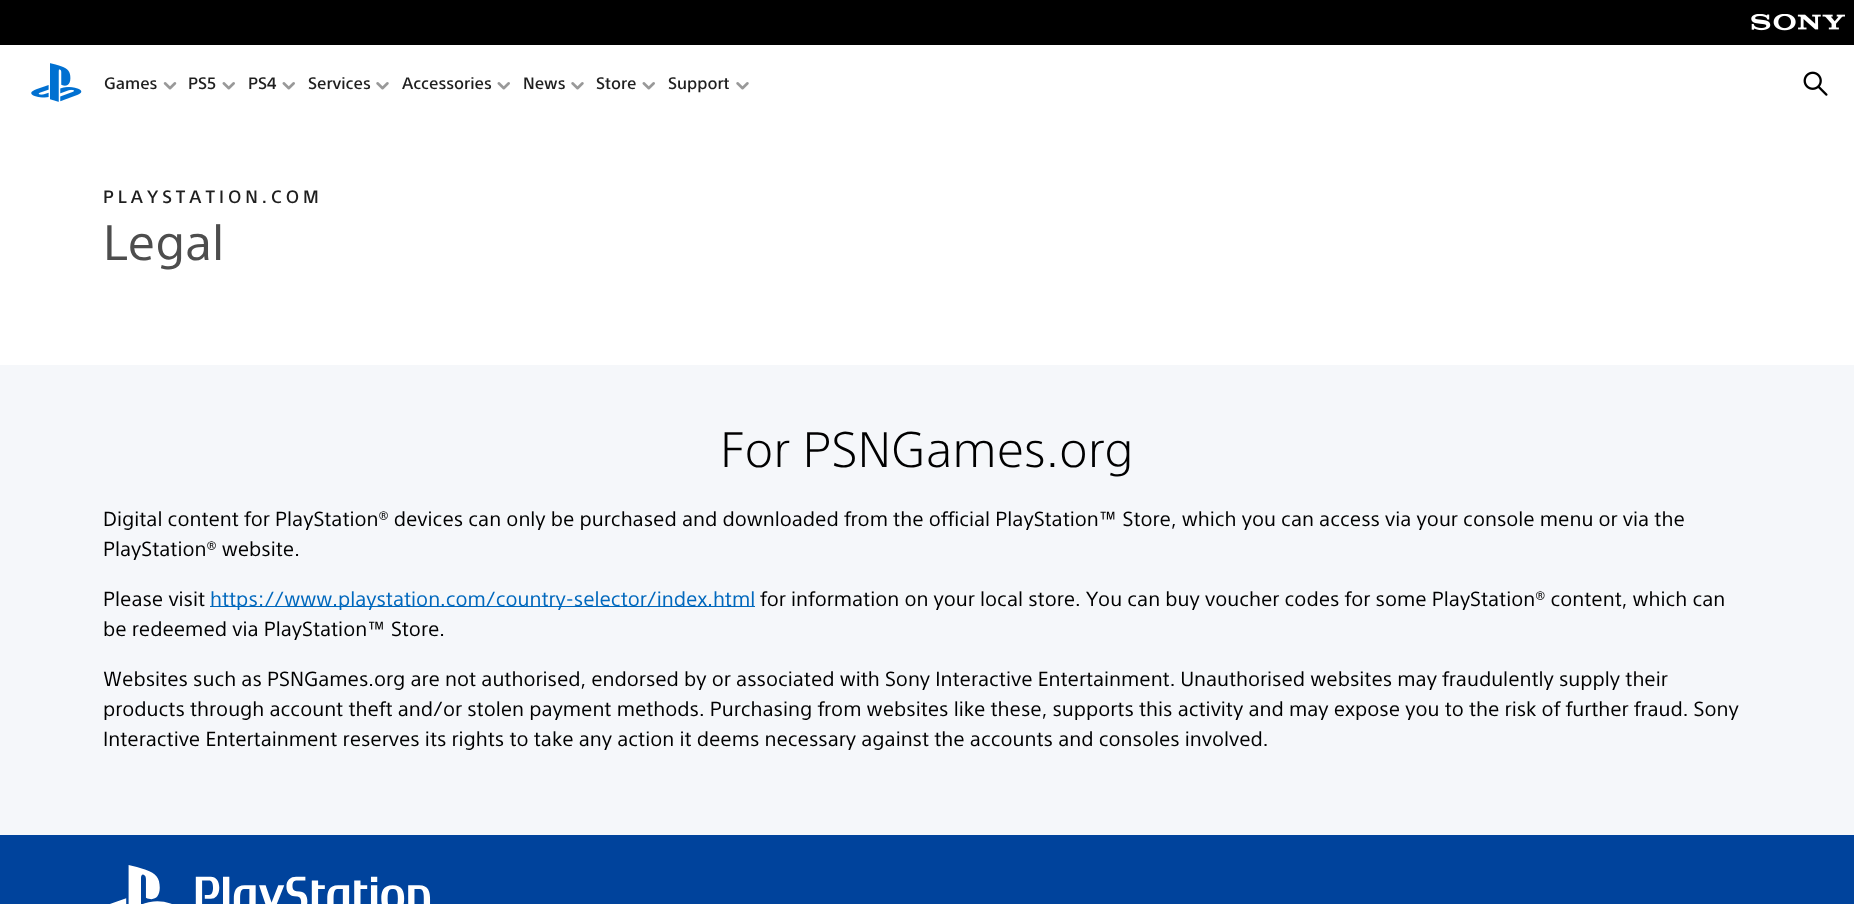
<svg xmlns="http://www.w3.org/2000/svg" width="1854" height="904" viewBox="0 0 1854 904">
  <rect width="100%" height="100%" fill="#fff"/>
  <path d="M0 0h1854v45H0z" fill="#000"/>
  <image x="1751" y="14" width="94" height="17" href="img/1.png"/>
  <image x="31" y="63" width="51" height="39" href="img/2.png"/>
  <image x="163" y="82" width="14" height="8" href="img/3.png"/>
  <image x="222" y="82" width="13" height="8" href="img/4.png"/>
  <image x="282" y="82" width="13" height="8" href="img/4.png"/>
  <image x="376" y="82" width="13" height="8" href="img/5.png"/>
  <image x="497" y="82" width="13" height="8" href="img/4.png"/>
  <image x="571" y="82" width="13" height="8" href="img/5.png"/>
  <image x="642" y="82" width="13" height="8" href="img/4.png"/>
  <image x="736" y="82" width="13" height="8" href="img/5.png"/>
  <image x="1803" y="71" width="25" height="25" href="img/6.png"/>
  <path d="M0 365h1854v470H0z" fill="#f5f7fa"/>
  <path d="M210 606h545v1H210z" fill="#0068bd"/>
  <path d="M0 835h1854v69H0z" fill="#00439c"/>
  <image x="110" y="865" width="321" height="39" href="img/7.png"/>
  <g font-family="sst" font-size="16.25" font-weight="500" fill="#1f1f1f">
    <text x="104" y="89">Games</text>
    <text x="188" y="89">PS5</text>
    <text x="248" y="89">PS4</text>
    <text x="308" y="89">Services</text>
    <text x="402" y="89">Accessories</text>
    <text x="523" y="89">News</text>
    <text x="596" y="89">Store</text>
    <text x="668" y="89">Support</text>
  </g>
  <text x="103" y="203" font-family="sst" font-size="17.5" font-weight="500" letter-spacing="4" fill="#1f1f1f">PLAYSTATION.COM</text>
  <text x="103" y="260" font-family="sst" font-size="48.75" fill="#4d4d4d">Legal</text>
  <text x="720" y="467" font-family="sst" font-size="48.75" font-weight="300" fill="#000">For PSNGames.org</text>
  <g font-family="sst" font-size="20" fill="#000">
    <text x="103" y="526">Digital content for PlayStation® devices can only be purchased and downloaded from the official PlayStation™ Store, which you can access via your console menu or via the</text>
    <text x="103" y="556">PlayStation® website.</text>
    <text x="103" y="606">Please visit</text>
  </g>
  <text x="210" y="606" font-family="sst" font-size="20" fill="#0068bd">https://www.playstation.com/country-selector/index.html</text>
  <g font-family="sst" font-size="20" fill="#000">
    <text x="760" y="606">for information on your local store. You can buy voucher codes for some PlayStation® content, which can</text>
    <text x="103" y="636">be redeemed via PlayStation™ Store.</text>
    <text x="103" y="686">Websites such as PSNGames.org are not authorised, endorsed by or associated with Sony Interactive Entertainment. Unauthorised websites may fraudulently supply their</text>
    <text x="103" y="716">products through account theft and/or stolen payment methods. Purchasing from websites like these, supports this activity and may expose you to the risk of further fraud. Sony</text>
    <text x="103" y="746">Interactive Entertainment reserves its rights to take any action it deems necessary against the accounts and consoles involved.</text>
  </g>
</svg>
